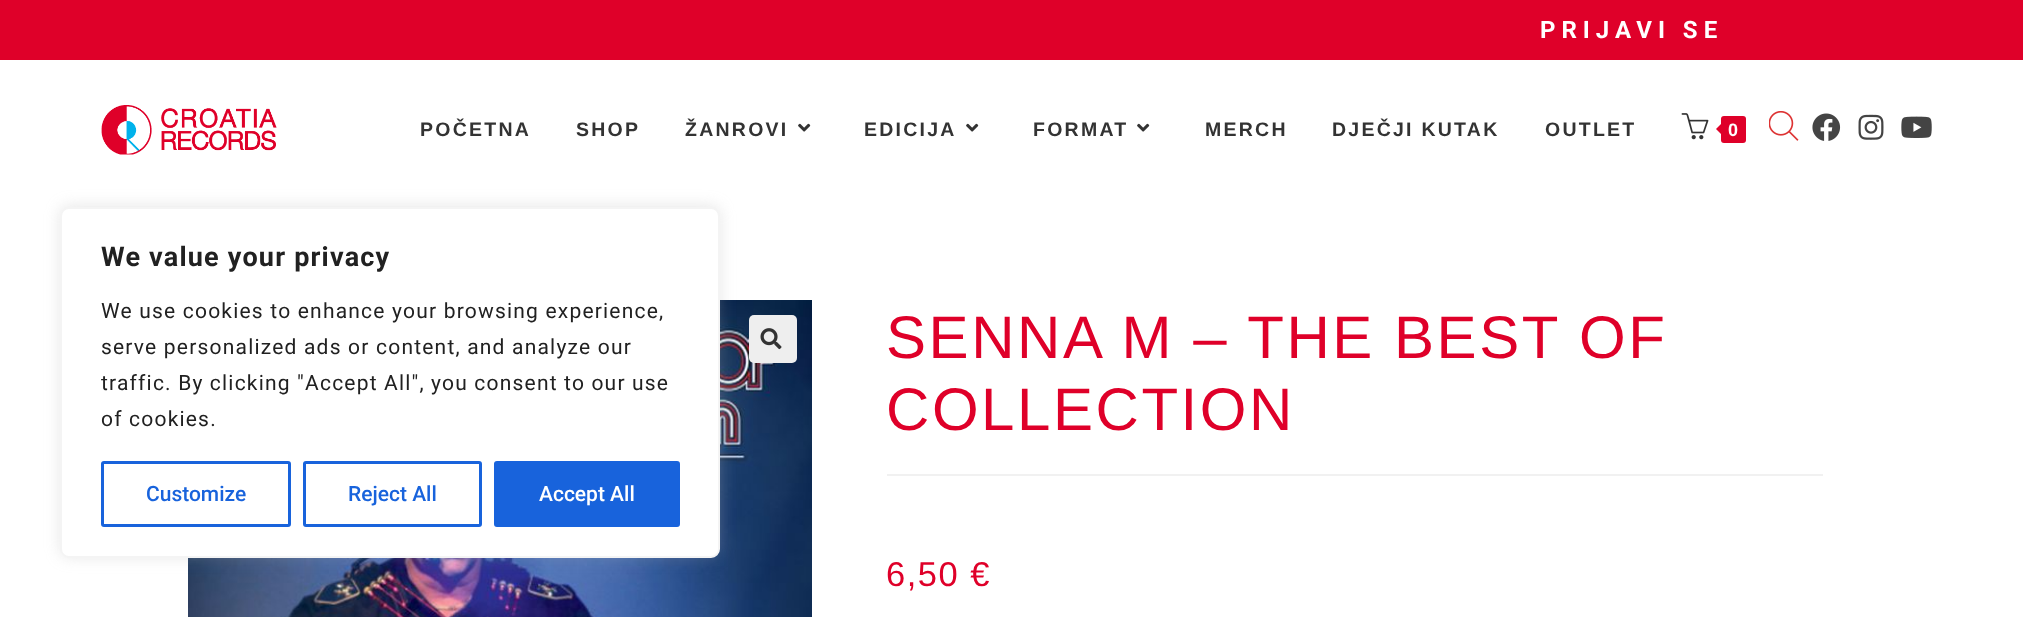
<svg xmlns="http://www.w3.org/2000/svg" width="2023" height="617" viewBox="0 0 2023 617">
  <rect width="100%" height="100%" fill="#fff"/>
  <image x="188" y="300" width="624" height="317" href="img/8.png"/>
  <rect x="60" y="206" width="660" height="351" rx="9" fill="#acabab4d" filter="blur(7.5px)"/>
  <rect x="61" y="208" width="658" height="349" rx="8" fill="#fff" stroke="#f4f4f4" stroke-width="2"/>
  <rect x="102.5" y="462.5" width="187" height="63" rx="1.5" fill="none" stroke="#1863dc" stroke-width="3"/>
  <rect x="304.5" y="462.5" width="176" height="63" rx="1.5" fill="none" stroke="#1863dc" stroke-width="3"/>
  <rect x="495.5" y="462.5" width="183" height="63" rx="1.5" fill="#1863dc" stroke="#1863dc" stroke-width="3"/>
  <path d="M0 0h2023v60H0z" fill="#df0029"/>
  <image x="101" y="105" width="176" height="50" href="img/1.png"/>
  <image x="798" y="123" width="13" height="9" href="img/2.png"/>
  <image x="966" y="123" width="13" height="9" href="img/2.png"/>
  <image x="1137" y="123" width="13" height="9" href="img/2.png"/>
  <image x="1681" y="113" width="28" height="27" href="img/3.png"/>
  <rect x="1721" y="116" width="25" height="27" rx="3" fill="#df0029"/>
  <path d="M1723.5 121.5V136.5L1716 129Z" fill="#df0029"/>
  <image x="1769" y="111" width="30" height="30" href="img/4.png"/>
  <image x="1812" y="113" width="29" height="28" href="img/5.png"/>
  <image x="1858" y="114" width="26" height="26" href="img/6.png"/>
  <image x="1901" y="116" width="31" height="22" href="img/7.png"/>
  <rect x="749" y="315" width="48" height="48" rx="5" fill="#eee"/>
  <image x="760" y="328" width="22" height="22" href="img/9.png"/>
  <path d="M887 474h936v2H887z" fill="#f1f1f1"/>
  <text x="101" y="266" font-family="Roboto" font-size="27" font-weight="bold" letter-spacing="1.2" fill="#212121">We value your privacy</text>
  <g font-family="Roboto" font-size="21" letter-spacing="1.2" fill="#212121">
    <text x="101" y="318">We use cookies to enhance your browsing experience,</text>
    <text x="101" y="354">serve personalized ads or content, and analyze our</text>
    <text x="101" y="390" word-spacing="-0.1">traffic. By clicking "Accept All", you consent to our use</text>
    <text x="101" y="426">of cookies.</text>
  </g>
  <g font-family="Roboto" font-size="21" font-weight="500" fill="#1863dc">
    <text x="146" y="501">Customize</text>
    <text x="348" y="501">Reject All</text>
  </g>
  <text x="539" y="501" font-family="Roboto" font-size="21" font-weight="500" fill="#fff">Accept All</text>
  <text x="1540" y="38" font-family="Roboto" font-size="24" font-weight="bold" letter-spacing="6" fill="#fff">PRIJAVI SE</text>
  <g font-family="Liberation Sans" font-size="19.5" font-weight="bold" letter-spacing="2.25" fill="#333">
    <text x="420" y="136">POČETNA</text>
    <text x="576" y="136">SHOP</text>
    <text x="685" y="136">ŽANROVI</text>
    <text x="864" y="136">EDICIJA</text>
    <text x="1033" y="136">FORMAT</text>
    <text x="1205" y="136">MERCH</text>
    <text x="1332" y="136">DJEČJI KUTAK</text>
    <text x="1545" y="136">OUTLET</text>
  </g>
  <text x="1728" y="136" font-family="Liberation Sans" font-size="18" font-weight="bold" fill="#fff">0</text>
  <g font-family="Liberation Sans" font-size="60" letter-spacing="2.55" fill="#df0029">
    <text x="886" y="358">SENNA M – THE BEST OF</text>
    <text x="886" y="430">COLLECTION</text>
  </g>
  <text x="886" y="586" font-family="Liberation Sans" font-size="34.5" letter-spacing="1.5" fill="#df0029">6,50 €</text>
</svg>
